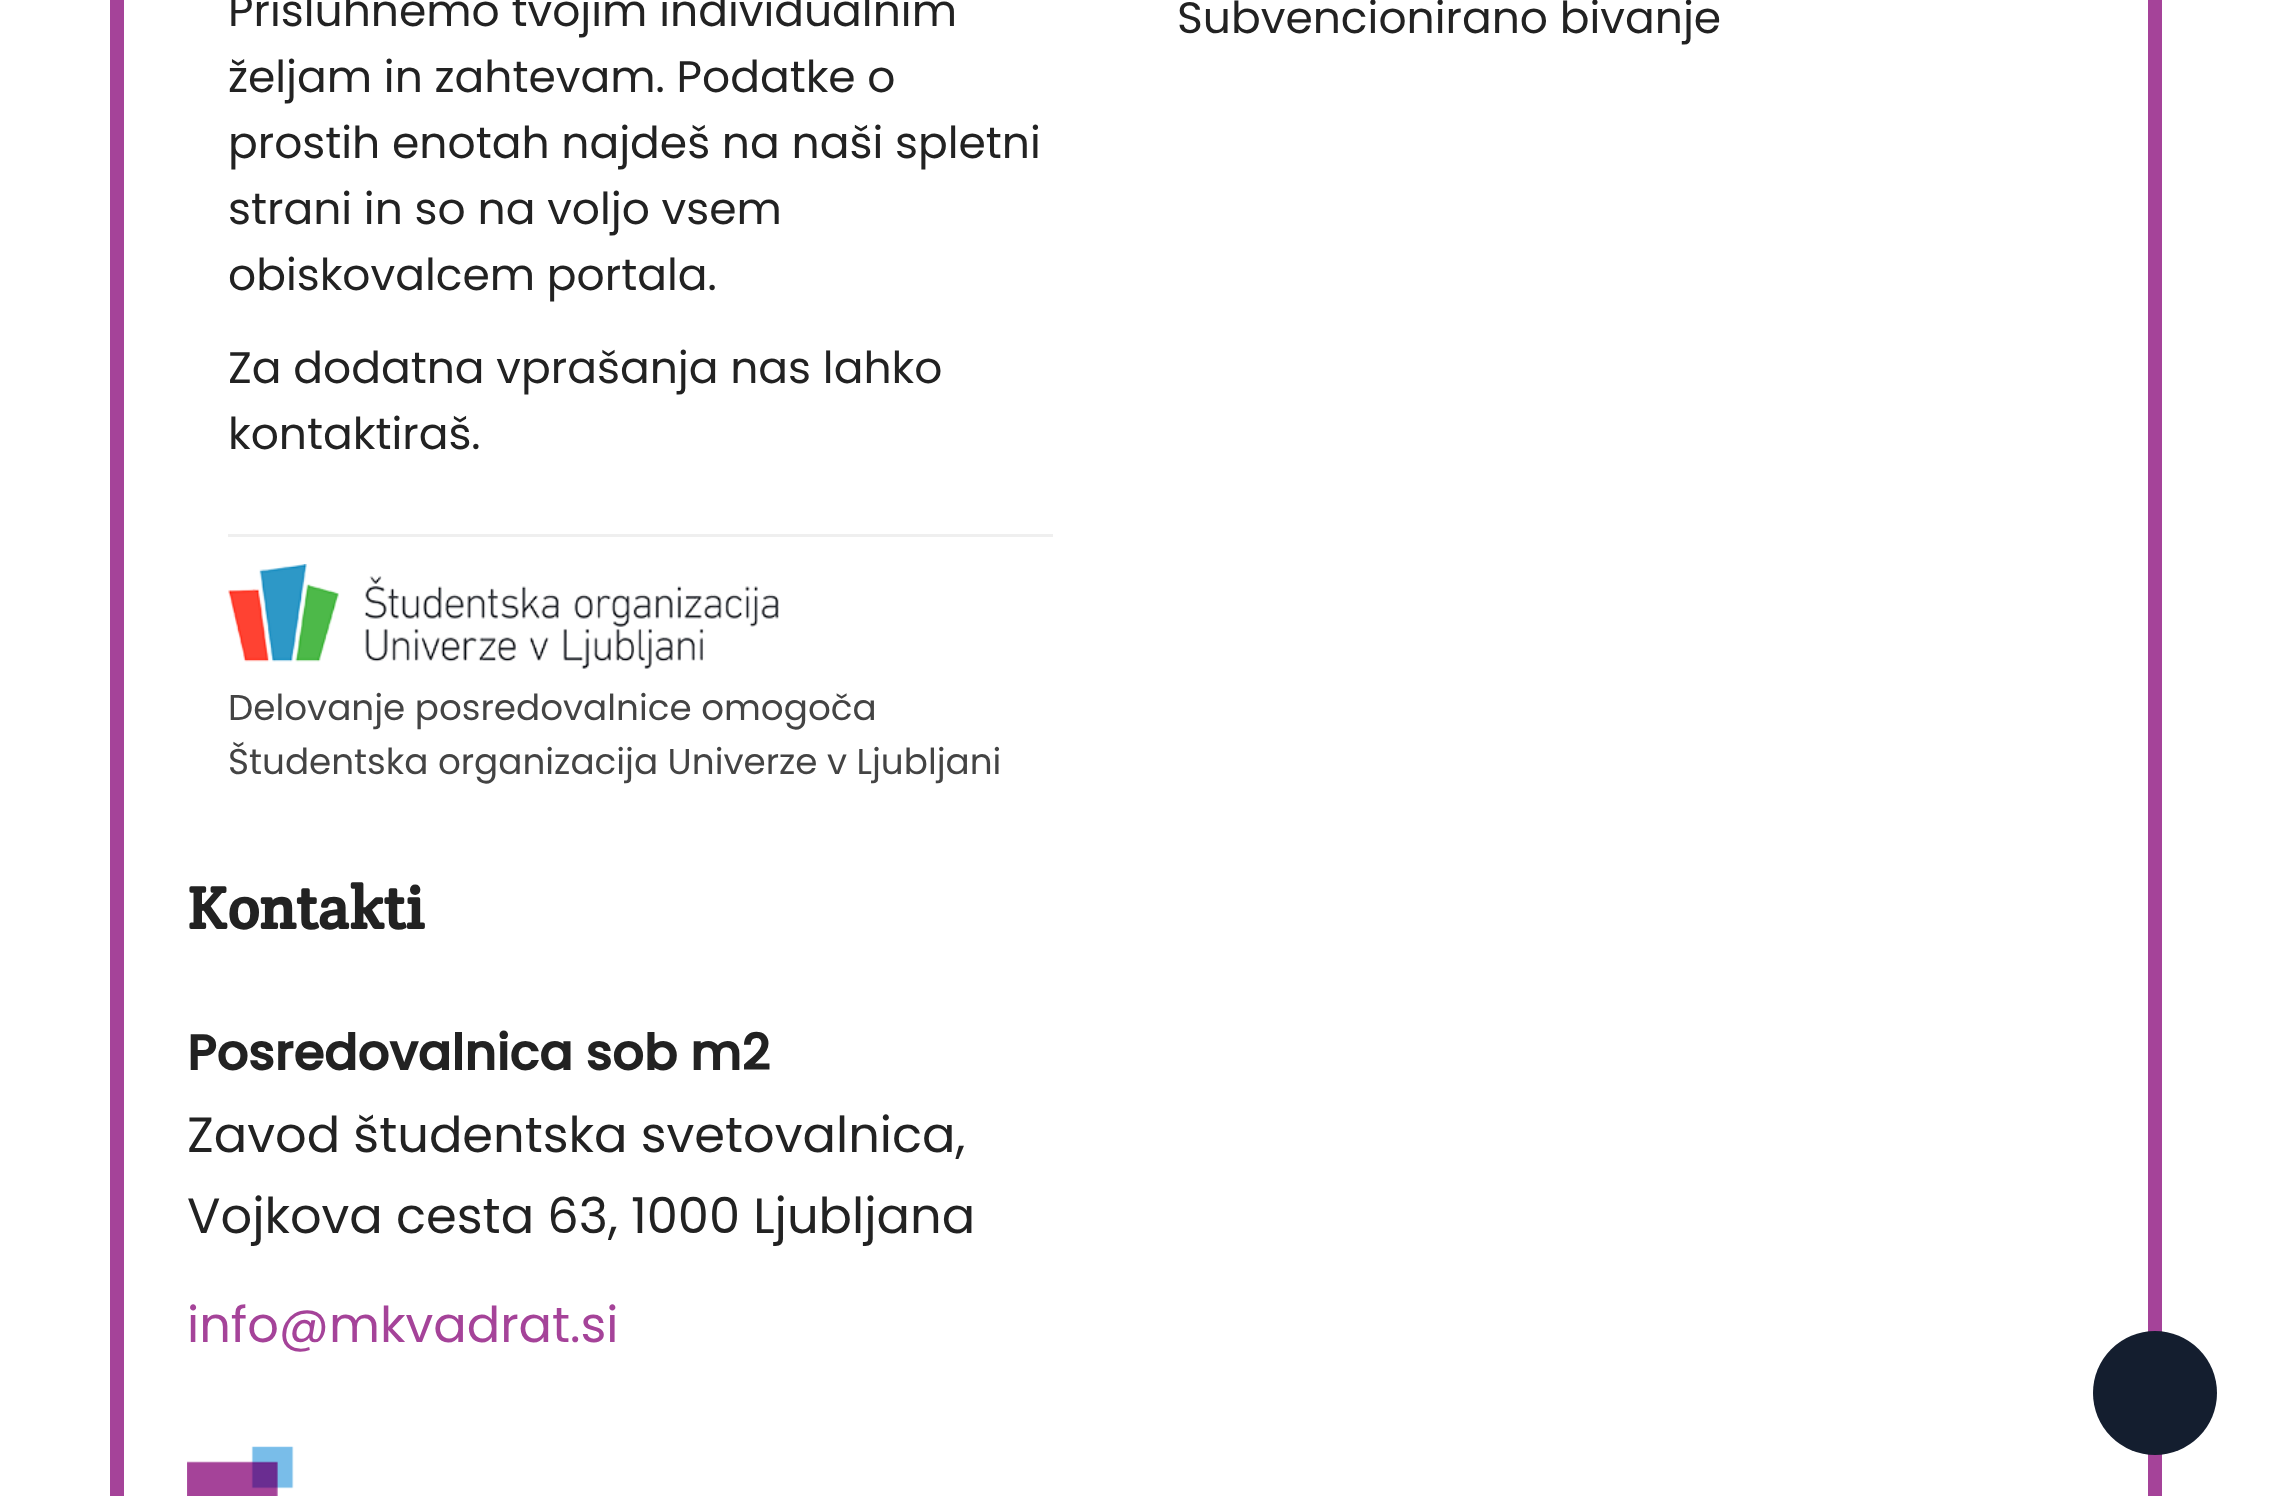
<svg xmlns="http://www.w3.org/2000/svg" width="2271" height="1496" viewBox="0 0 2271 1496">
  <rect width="100%" height="100%" fill="#fff"/>
  <path d="M117 -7h2038v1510H117z" fill="none" stroke="#a54399" stroke-width="14"/>
  <path d="M228 534h825v3H228z" fill="#efefef"/>
  <image x="228" y="564" width="551" height="105" href="img/1.png"/>
  <image x="187" y="1446" width="107" height="50" href="img/2.png"/>
  <circle cx="2155" cy="1393" r="62" fill="#141e2f"/>
  <g font-family="Poppins" font-size="44" fill="#222">
    <text x="228" y="26">Prisluhnemo tvojim individualnim</text>
    <text x="228" y="92">željam in zahtevam. Podatke o</text>
    <text x="228" y="158">prostih enotah najdeš na naši spletni</text>
    <text x="228" y="224">strani in so na voljo vsem</text>
    <text x="228" y="290">obiskovalcem portala.</text>
    <text x="228" y="383">Za dodatna vprašanja nas lahko</text>
    <text x="228" y="449">kontaktiraš.</text>
  </g>
  <g font-family="Poppins" font-size="35.75" fill="#444">
    <text x="228" y="720">Delovanje posredovalnice omogoča</text>
    <text x="228" y="774">Študentska organizacija Univerze v Ljubljani</text>
  </g>
  <text x="1177" y="33" font-family="Poppins" font-size="44" fill="#222">Subvencionirano bivanje</text>
  <text x="187" y="929" font-family="Crete Round" font-size="60.5" font-weight="bold" fill="#222">Kontakti</text>
  <text x="187" y="1070" font-family="Poppins" font-size="49.5" font-weight="bold" fill="#222">Posredovalnica sob m2</text>
  <g font-family="Poppins" font-size="49.5" fill="#222">
    <text x="187" y="1152">Zavod študentska svetovalnica,</text>
    <text x="187" y="1233">Vojkova cesta 63, 1000 Ljubljana</text>
  </g>
  <text x="187" y="1342" font-family="Poppins" font-size="49.5" fill="#a54399">info@mkvadrat.si</text>
</svg>
